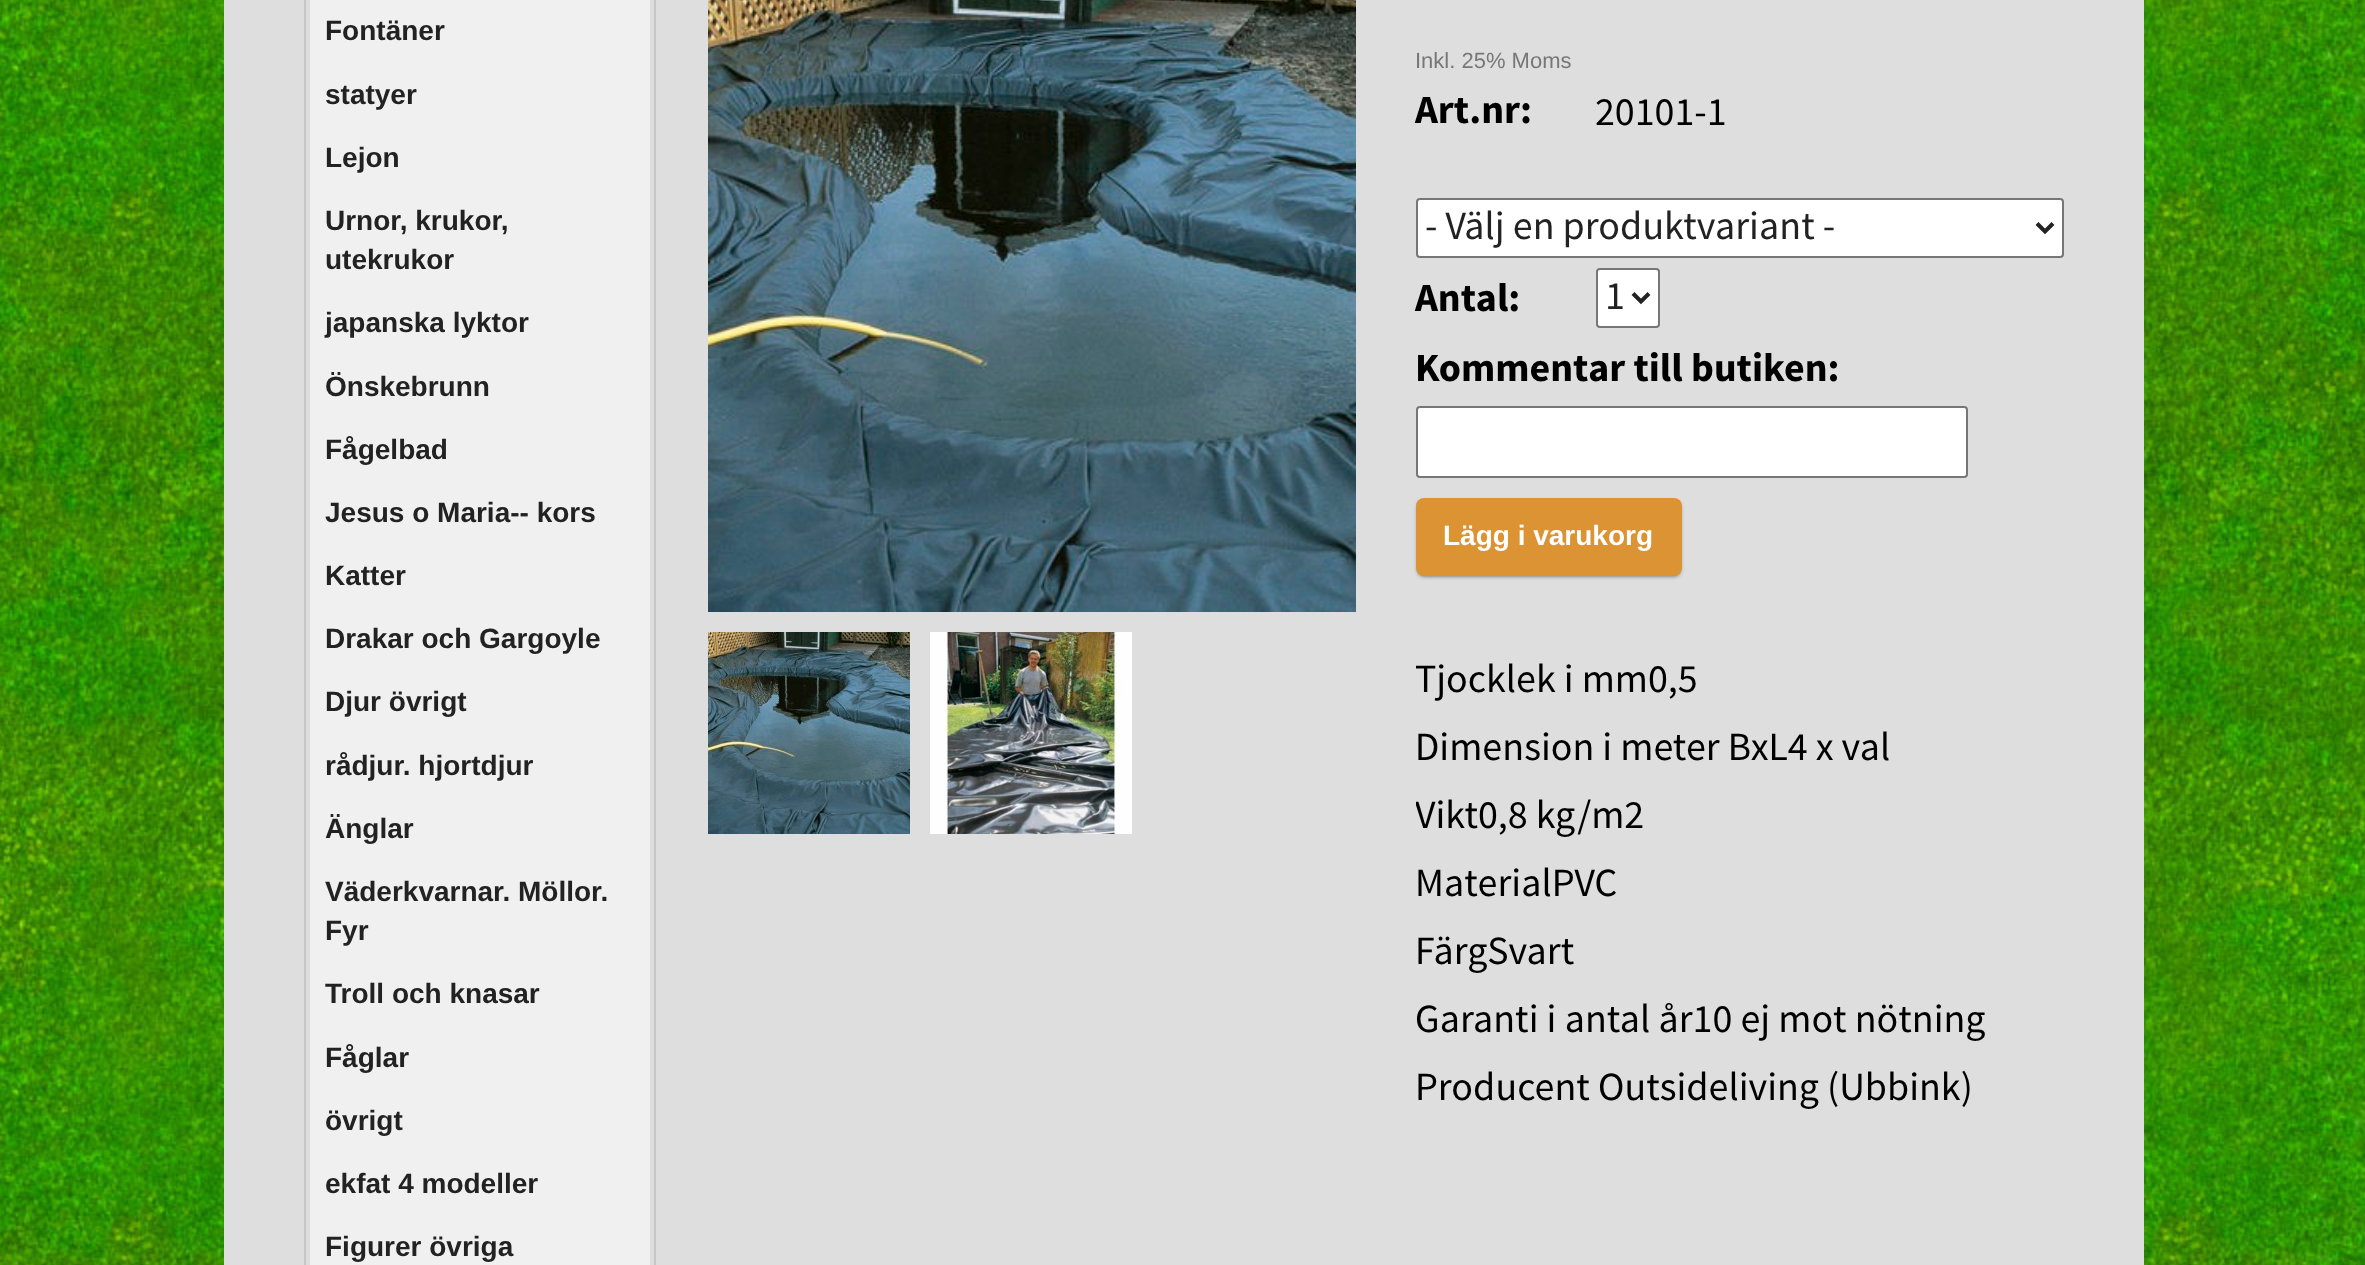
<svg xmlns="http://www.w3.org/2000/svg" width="2365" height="1265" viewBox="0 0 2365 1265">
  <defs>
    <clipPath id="clip1"><path d="M1416 646h648v476H1416z"/></clipPath>
  </defs>
  <rect width="100%" height="100%" fill="#fff"/>
  <image x="0" y="0" width="2365" height="1265" href="img/1.png"/>
  <path d="M224 0h1920v1265H224z" fill="#dedede"/>
  <path d="M305 -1h350v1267H305z" fill="none" stroke="#c7c7c7" stroke-width="2"/>
  <path d="M310 0h340v1265H310z" fill="#f0f0f0"/>
  <image x="708" y="0" width="648" height="612" href="img/2.png"/>
  <image x="708" y="632" width="202" height="202" href="img/3.png"/>
  <image x="930" y="632" width="202" height="202" href="img/4.png"/>
  <rect x="1417" y="199" width="646" height="58" rx="3" fill="#fff" stroke="#767676" stroke-width="2"/>
  <path d="M2037 223.5L2045 231.5L2053 223.5" fill="none" stroke="#222" stroke-width="4"/>
  <rect x="1597" y="269" width="62" height="58" rx="3" fill="#fff" stroke="#767676" stroke-width="2"/>
  <path d="M1633 293.5L1641 301.5L1649 293.5" fill="none" stroke="#222" stroke-width="4"/>
  <rect x="1417" y="407" width="550" height="70" rx="3" fill="#fff" stroke="#767676" stroke-width="2"/>
  <rect x="1418" y="502" width="262" height="74" rx="6" fill="#00000099" filter="blur(2px)"/>
  <rect x="1416" y="498" width="266" height="78" rx="8" fill="#db9334"/>
  <g font-family="Liberation Sans" font-size="28" font-weight="bold" fill="#222">
    <text x="325" y="40">Fontäner</text>
    <text x="325" y="104">statyer</text>
    <text x="325" y="167">Lejon</text>
    <text x="325" y="230">Urnor, krukor,</text>
    <text x="325" y="269">utekrukor</text>
    <text x="325" y="332">japanska lyktor</text>
    <text x="325" y="396">Önskebrunn</text>
    <text x="325" y="459">Fågelbad</text>
    <text x="325" y="522">Jesus o Maria-- kors</text>
    <text x="325" y="585">Katter</text>
    <text x="325" y="648">Drakar och Gargoyle</text>
    <text x="325" y="711">Djur övrigt</text>
    <text x="325" y="775">rådjur. hjortdjur</text>
    <text x="325" y="838">Änglar</text>
    <text x="325" y="901">Väderkvarnar. Möllor.</text>
    <text x="325" y="940">Fyr</text>
    <text x="325" y="1003">Troll och knasar</text>
    <text x="325" y="1067">Fåglar</text>
    <text x="325" y="1130">övrigt</text>
    <text x="325" y="1193">ekfat 4 modeller</text>
    <text x="325" y="1256">Figurer övriga</text>
  </g>
  <text x="1415" y="68" font-family="Liberation Sans" font-size="22" fill="#777">Inkl. 25% Moms</text>
  <text x="1415" y="123" font-family="Source Sans Pro" font-size="40" font-weight="bold" fill="#000">Art.nr:</text>
  <text x="1595" y="125" font-family="Source Sans Pro" font-size="40" fill="#000">20101-1</text>
  <text x="1425" y="239" font-family="Source Sans Pro" font-size="40" fill="#222">- Välj en produktvariant -</text>
  <text x="1415" y="311" font-family="Source Sans Pro" font-size="40" font-weight="bold" fill="#000">Antal:</text>
  <text x="1605" y="309" font-family="Source Sans Pro" font-size="40" fill="#222">1</text>
  <text x="1415" y="381" font-family="Source Sans Pro" font-size="40" font-weight="bold" fill="#000">Kommentar till butiken:</text>
  <text x="1443" y="545" font-family="Liberation Sans" font-size="28" font-weight="bold" fill="#fff">Lägg i varukorg</text>
  <g font-family="Source Sans Pro" font-size="40" fill="#000">
    <text x="1415" y="692">Tjocklek i mm0,5</text>
    <text x="1415" y="760">Dimension i meter BxL4 x val</text>
  </g>
  <g clip-path="url(#clip1)">
    <text x="1415" y="828" font-family="Source Sans Pro" font-size="40" fill="#000">Vikt0,8 kg/m2</text>
  </g>
  <g font-family="Source Sans Pro" font-size="40" fill="#000">
    <text x="1415" y="896">MaterialPVC</text>
    <text x="1415" y="964">FärgSvart</text>
    <text x="1415" y="1032">Garanti i antal år10 ej mot nötning</text>
    <text x="1415" y="1100">Producent Outsideliving (Ubbink)</text>
  </g>
</svg>
